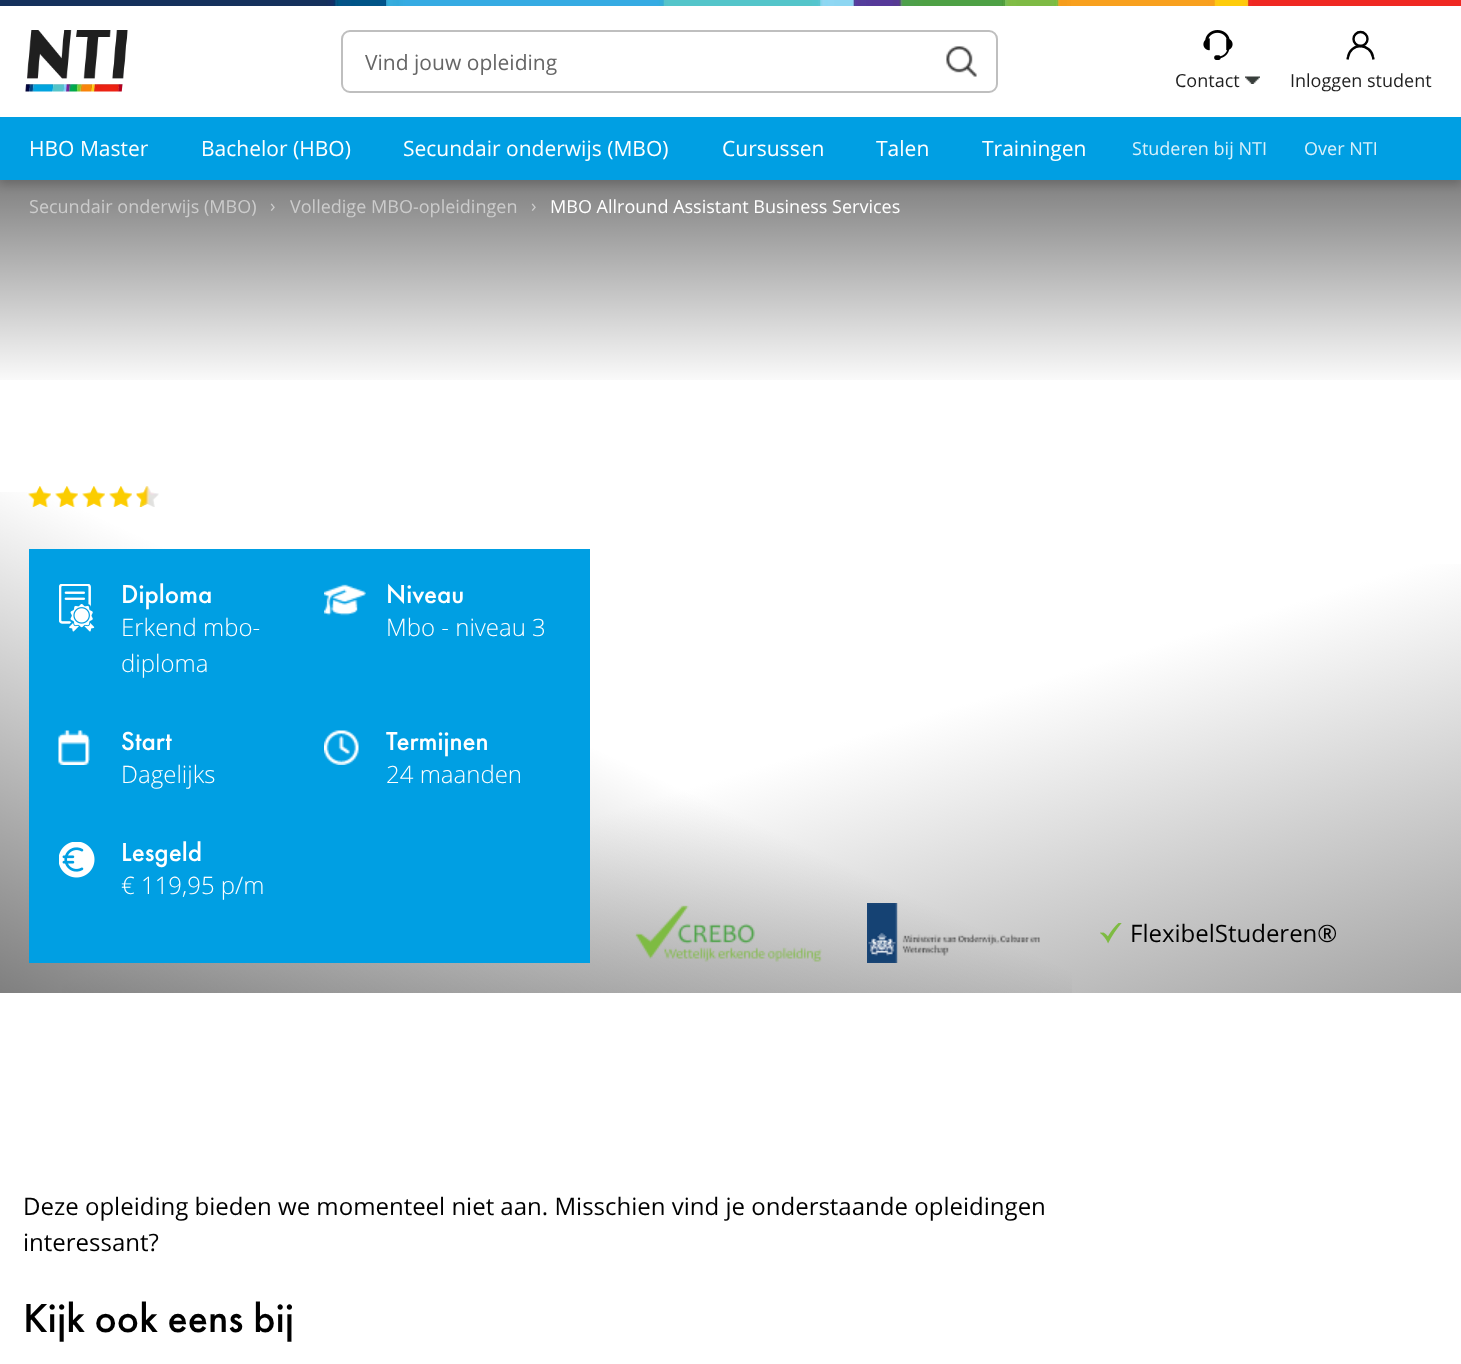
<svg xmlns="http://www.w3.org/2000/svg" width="1461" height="1364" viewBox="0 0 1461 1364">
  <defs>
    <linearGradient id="g1" gradientUnits="userSpaceOnUse" x1="731" y1="180" x2="731" y2="540"><stop offset="0" stop-color="#000" stop-opacity="0.5"/><stop offset="0.58" stop-color="#000" stop-opacity="0"/></linearGradient>
    <linearGradient id="g2" gradientUnits="userSpaceOnUse" x1="907" y1="1162" x2="554" y2="11"><stop offset="0" stop-color="#a4a4a4"/><stop offset="0.35" stop-color="#fff"/><stop offset="1" stop-color="#fff"/></linearGradient>
    <linearGradient id="g3" gradientUnits="userSpaceOnUse" x1="444" y1="1200" x2="1017" y2="-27"><stop offset="0" stop-color="#000" stop-opacity="0.5"/><stop offset="0.35" stop-color="#000" stop-opacity="0"/><stop offset="1" stop-color="#000" stop-opacity="0"/></linearGradient>
  </defs>
  <rect width="100%" height="100%" fill="#fff"/>
  <path d="M0 180h1461v200H0z" fill="url(#g1)"/>
  <path d="M0 122h1461v63H0z" fill="#00000029" filter="blur(4.5px)"/>
  <path d="M1 115h1459v2H1z" fill="#fff"/>
  <image x="0" y="0" width="1461" height="6" href="img/1.png"/>
  <image x="25" y="30" width="103" height="62" href="img/2.png"/>
  <rect x="342" y="31" width="655" height="61" rx="8" fill="none" stroke="#bfbfbf" stroke-width="2"/>
  <image x="946" y="46" width="31" height="31" href="img/3.png"/>
  <image x="1203" y="30" width="30" height="30" href="img/4.png"/>
  <image x="1245" y="76" width="15" height="8" href="img/5.png"/>
  <circle cx="1360.5" cy="39" r="7" fill="none" stroke="#020202" stroke-width="2.4"/>
  <path d="M1347.5 59.5L1348 57C1349 50.5 1354.5 46 1360.5 46C1366.5 46.5 1372 50.5 1373 57L1373.5 59.5" fill="none" stroke="#020202" stroke-width="2.4"/>
  <path d="M0 117h1461v63H0z" fill="#009fe3"/>
  <path d="M62 564h1399v429H62z" fill="url(#g2)"/>
  <path d="M0 492h1072v501H0z" fill="url(#g3)"/>
  <image x="28" y="486" width="23" height="21" href="img/6.png"/>
  <image x="55" y="486" width="23" height="21" href="img/7.png"/>
  <image x="82" y="486" width="23" height="21" href="img/8.png"/>
  <image x="109" y="486" width="23" height="21" href="img/8.png"/>
  <image x="136" y="486" width="23" height="21" href="img/9.png"/>
  <path d="M29 549h561v414H29z" fill="#009fe3"/>
  <image x="59" y="584" width="36" height="48" href="img/10.png"/>
  <image x="324" y="584" width="42" height="32" href="img/11.png"/>
  <image x="58" y="730" width="32" height="35" href="img/12.png"/>
  <image x="324" y="730" width="35" height="35" href="img/13.png"/>
  <image x="59" y="842" width="36" height="36" href="img/14.png"/>
  <image x="635" y="905" width="187" height="57" href="img/15.png"/>
  <image x="867" y="903" width="173" height="60" href="img/16.png"/>
  <image x="1100" y="923" width="22" height="21" href="img/17.png"/>
  <text x="365" y="70" font-family="Open Sans" font-size="21" fill="#666">Vind jouw opleiding</text>
  <g font-family="Open Sans" font-size="18" fill="#1f1f1f">
    <text x="1175" y="87">Contact</text>
    <text x="1290" y="87">Inloggen student</text>
  </g>
  <g font-family="Open Sans" font-size="21" fill="#fff">
    <text x="29" y="156">HBO Master</text>
    <text x="201" y="156">Bachelor (HBO)</text>
    <text x="403" y="156">Secundair onderwijs (MBO)</text>
    <text x="722" y="156">Cursussen</text>
    <text x="876" y="156">Talen</text>
    <text x="982" y="156">Trainingen</text>
  </g>
  <g font-family="Open Sans" font-size="18" fill="#d9f1fb">
    <text x="1132" y="155">Studeren bij NTI</text>
    <text x="1304" y="155">Over NTI</text>
  </g>
  <g font-family="Open Sans" font-size="18" fill="#ccc">
    <text x="29" y="213">Secundair onderwijs (MBO)</text>
    <text x="270" y="212">›</text>
    <text x="290" y="213">Volledige MBO-opleidingen</text>
    <text x="531" y="212">›</text>
  </g>
  <text x="550" y="213" font-family="Open Sans" font-size="18" fill="#fff">MBO Allround Assistant Business Services</text>
  <text x="121" y="603" font-family="Futura PT" font-size="27" font-weight="500" fill="#fff">Diploma</text>
  <g font-family="Open Sans" font-size="24" font-weight="300" fill="#fff">
    <text x="121" y="636">Erkend mbo-</text>
    <text x="121" y="672">diploma</text>
  </g>
  <text x="386" y="603" font-family="Futura PT" font-size="27" font-weight="500" fill="#fff">Niveau</text>
  <text x="386" y="636" font-family="Open Sans" font-size="24" font-weight="300" fill="#fff">Mbo - niveau 3</text>
  <text x="121" y="750" font-family="Futura PT" font-size="27" font-weight="500" fill="#fff">Start</text>
  <text x="121" y="783" font-family="Open Sans" font-size="24" font-weight="300" fill="#fff">Dagelijks</text>
  <text x="386" y="750" font-family="Futura PT" font-size="27" font-weight="500" fill="#fff">Termijnen</text>
  <text x="386" y="783" font-family="Open Sans" font-size="24" font-weight="300" fill="#fff">24 maanden</text>
  <text x="121" y="861" font-family="Futura PT" font-size="27" font-weight="500" fill="#fff">Lesgeld</text>
  <text x="121" y="894" font-family="Open Sans" font-size="24" font-weight="300" fill="#fff">€ 119,95 p/m</text>
  <g font-family="Open Sans" font-size="24" fill="#000">
    <text x="1130" y="942">FlexibelStuderen®</text>
    <text x="23" y="1215">Deze opleiding bieden we momenteel niet aan. Misschien vind je onderstaande opleidingen</text>
    <text x="23" y="1251">interessant?</text>
  </g>
  <text x="23" y="1332" font-family="Futura PT" font-size="42" font-weight="500" fill="#000">Kijk ook eens bij</text>
</svg>
